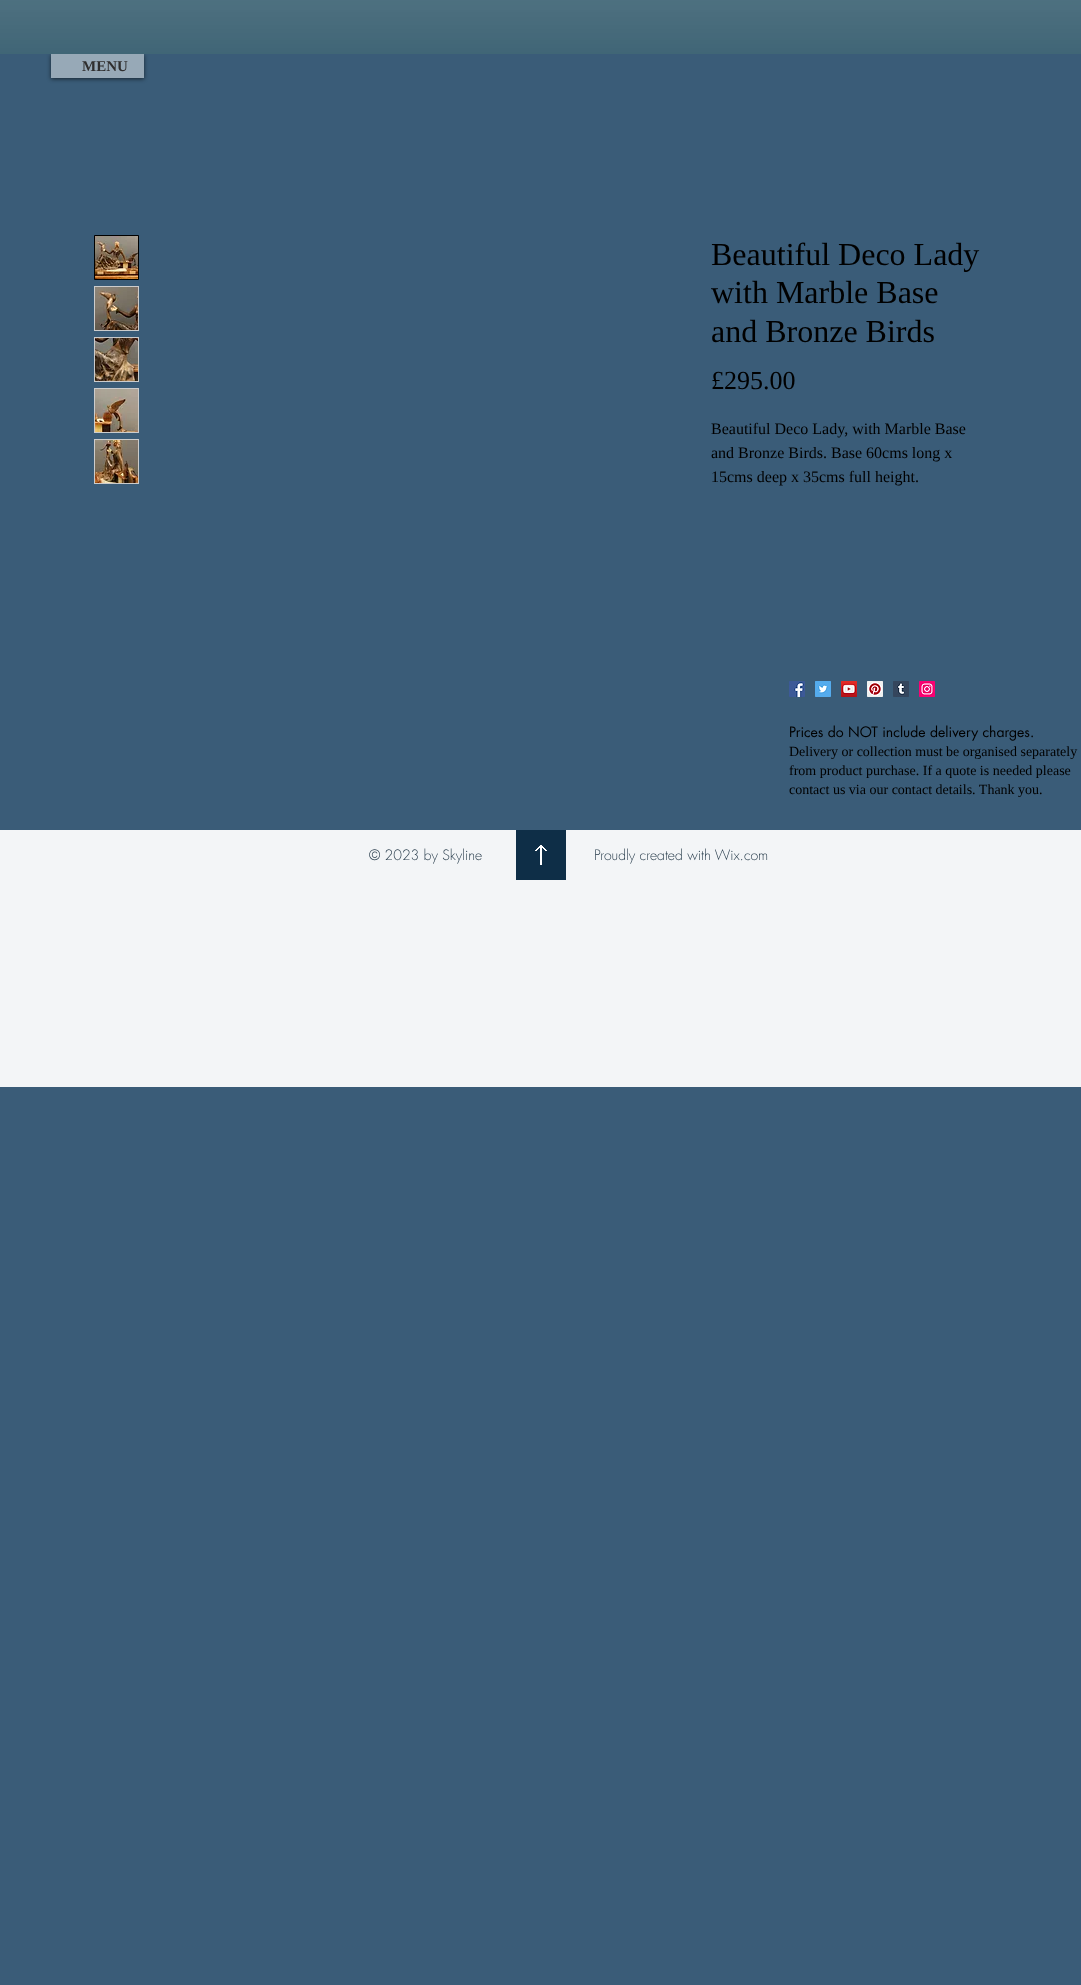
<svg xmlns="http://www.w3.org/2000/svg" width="1081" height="1985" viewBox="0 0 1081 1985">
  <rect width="100%" height="100%" fill="#3a5c78"/>
  <path d="M51 55h93v24H51z" fill="#00000099" filter="blur(2px)"/>
  <path d="M0 0h1081v54H0z" fill="#103f54"/>
  <image x="0" y="0" width="1081" height="54" href="img/1.png"/>
  <path d="M51 54h93v24H51z" fill="#97a9b7"/>
  <path d="M94.5 235.5h44v44H94.5z" fill="none" stroke="#000"/>
  <image x="95" y="236" width="43" height="43" href="img/2.png"/>
  <path d="M94 286h45v45H94z" fill="#ccc"/>
  <image x="95" y="287" width="43" height="43" href="img/3.png"/>
  <path d="M94 337h45v45H94z" fill="#ccc"/>
  <image x="95" y="338" width="43" height="43" href="img/4.png"/>
  <path d="M94 388h45v45H94z" fill="#ccc"/>
  <image x="95" y="389" width="43" height="43" href="img/5.png"/>
  <path d="M94 439h45v45H94z" fill="#ccc"/>
  <image x="95" y="440" width="43" height="43" href="img/6.png"/>
  <image x="789" y="681" width="16" height="16" href="img/7.png"/>
  <image x="815" y="681" width="16" height="16" href="img/8.png"/>
  <image x="841" y="681" width="16" height="16" href="img/9.png"/>
  <image x="867" y="681" width="16" height="16" href="img/10.png"/>
  <image x="893" y="681" width="16" height="16" href="img/11.png"/>
  <image x="919" y="681" width="16" height="16" href="img/12.png"/>
  <path d="M0 830h1081v257H0z" fill="#f3f5f7"/>
  <image x="516" y="830" width="50" height="50" href="img/13.png"/>
  <text x="82" y="71" font-family="Liberation Serif" font-size="15" font-weight="bold" fill="#2f2e2e">MENU</text>
  <g font-family="Liberation Serif" font-size="32" fill="#000">
    <text x="711" y="265">Beautiful Deco Lady</text>
    <text x="711" y="303">with Marble Base</text>
    <text x="711" y="342">and Bronze Birds</text>
  </g>
  <text x="711" y="389" font-family="Liberation Serif" font-size="26" fill="#000">£295.00</text>
  <g font-family="Liberation Serif" font-size="16" fill="#000">
    <text x="711" y="434">Beautiful Deco Lady, with Marble Base</text>
    <text x="711" y="458">and Bronze Birds. Base 60cms long x</text>
    <text x="711" y="482">15cms deep x 35cms full height.</text>
  </g>
  <text x="789" y="737" font-family="futura" font-size="14" fill="#000">Prices do NOT include delivery charges.</text>
  <g font-family="Liberation Serif" font-size="14" fill="#000">
    <text x="789" y="756">Delivery or collection must be organised separately</text>
    <text x="789" y="775">from product purchase. If a quote is needed please</text>
    <text x="789" y="794">contact us via our contact details. Thank you.</text>
  </g>
  <g font-family="futura" font-size="14" font-weight="300" fill="#2a3e4d">
    <text x="369" y="860">© 2023 by Skyline</text>
    <text x="594" y="860">Proudly created with Wix.com</text>
  </g>
</svg>
